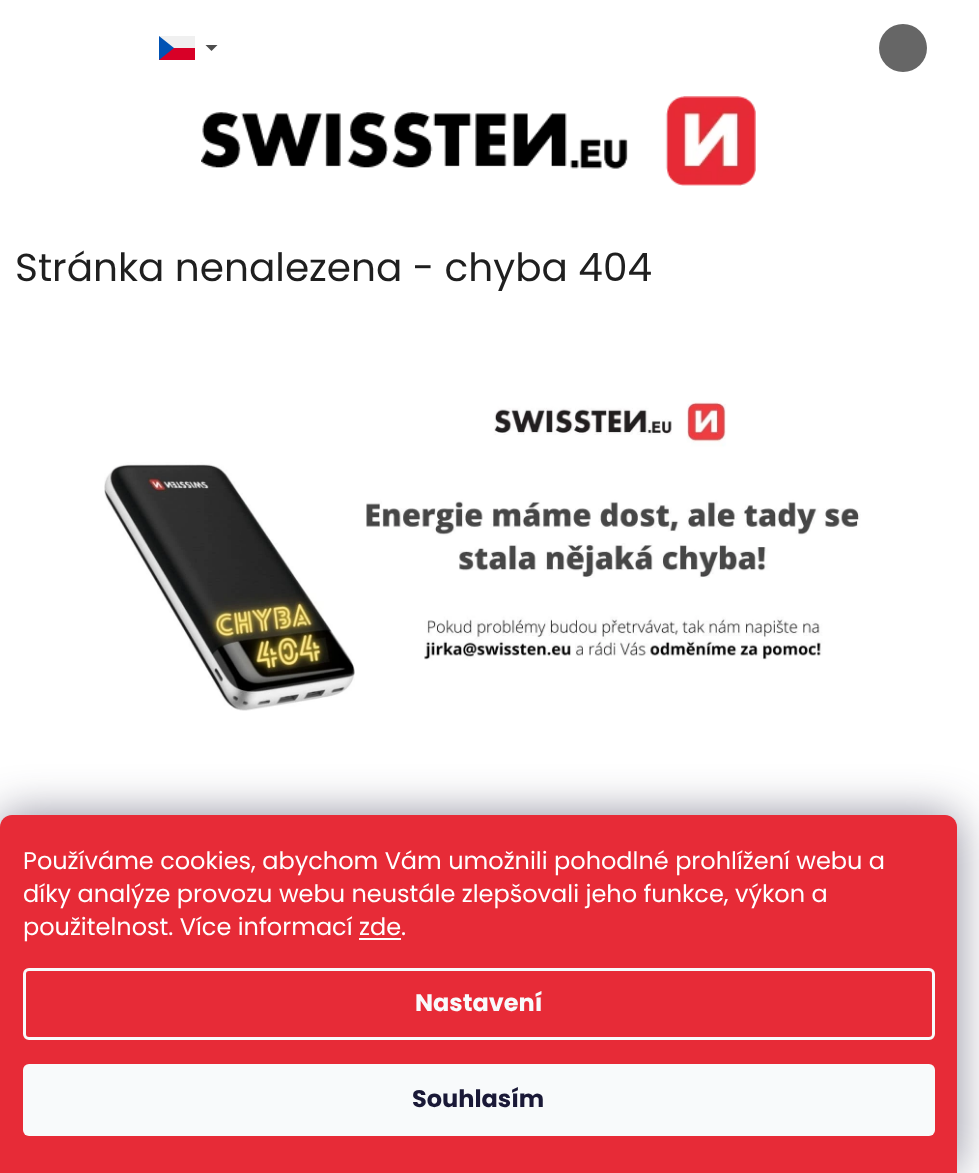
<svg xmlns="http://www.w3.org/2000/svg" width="979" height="1173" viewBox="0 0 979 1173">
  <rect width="100%" height="100%" fill="#fff"/>
  <path d="M159 36h15v24H159z" fill="#0052b4"/>
  <path d="M195 48V60H159L174 48Z" fill="#d80027"/>
  <path d="M195 36V48H174L159 36Z" fill="#f0f0f0"/>
  <path d="M205.5 45H217.5L211.5 51Z" fill="#4d4d4d"/>
  <circle cx="903" cy="48" r="24" fill="#666"/>
  <image x="201" y="96" width="555" height="90" href="img/1.png"/>
  <image x="104" y="400" width="757" height="311" href="img/2.png"/>
  <rect y="815" width="957" height="358" rx="12" fill="#1b193980" filter="blur(22.5px)"/>
  <path d="M12 815H945C951.5 815 957 820.5 957 827V1173H0V827C0 820.5 5.5 815 12 815Z" fill="#e72b37"/>
  <path d="M359 938h42v2H359z" fill="#fff"/>
  <rect x="24.5" y="969.5" width="909" height="69" rx="4.5" fill="none" stroke="#f8fafb" stroke-width="3"/>
  <rect x="23" y="1064" width="912" height="72" rx="6" fill="#f8fafb"/>
  <text x="15" y="281" font-family="Poppins" font-size="39" fill="#1f1f1f">Stránka nenalezena - chyba 404</text>
  <g font-family="Poppins" font-size="24" fill="#fff">
    <text x="23" y="869">Používáme cookies, abychom Vám umožnili pohodlné prohlížení webu a</text>
    <text x="23" y="902">díky analýze provozu webu neustále zlepšovali jeho funkce, výkon a</text>
    <text x="23" y="935">použitelnost. Více informací zde.</text>
  </g>
  <text x="415" y="1011" font-family="Poppins" font-size="24" font-weight="bold" fill="#f8fafb">Nastavení</text>
  <text x="412" y="1107" font-family="Poppins" font-size="24" font-weight="bold" fill="#1a1937">Souhlasím</text>
</svg>
